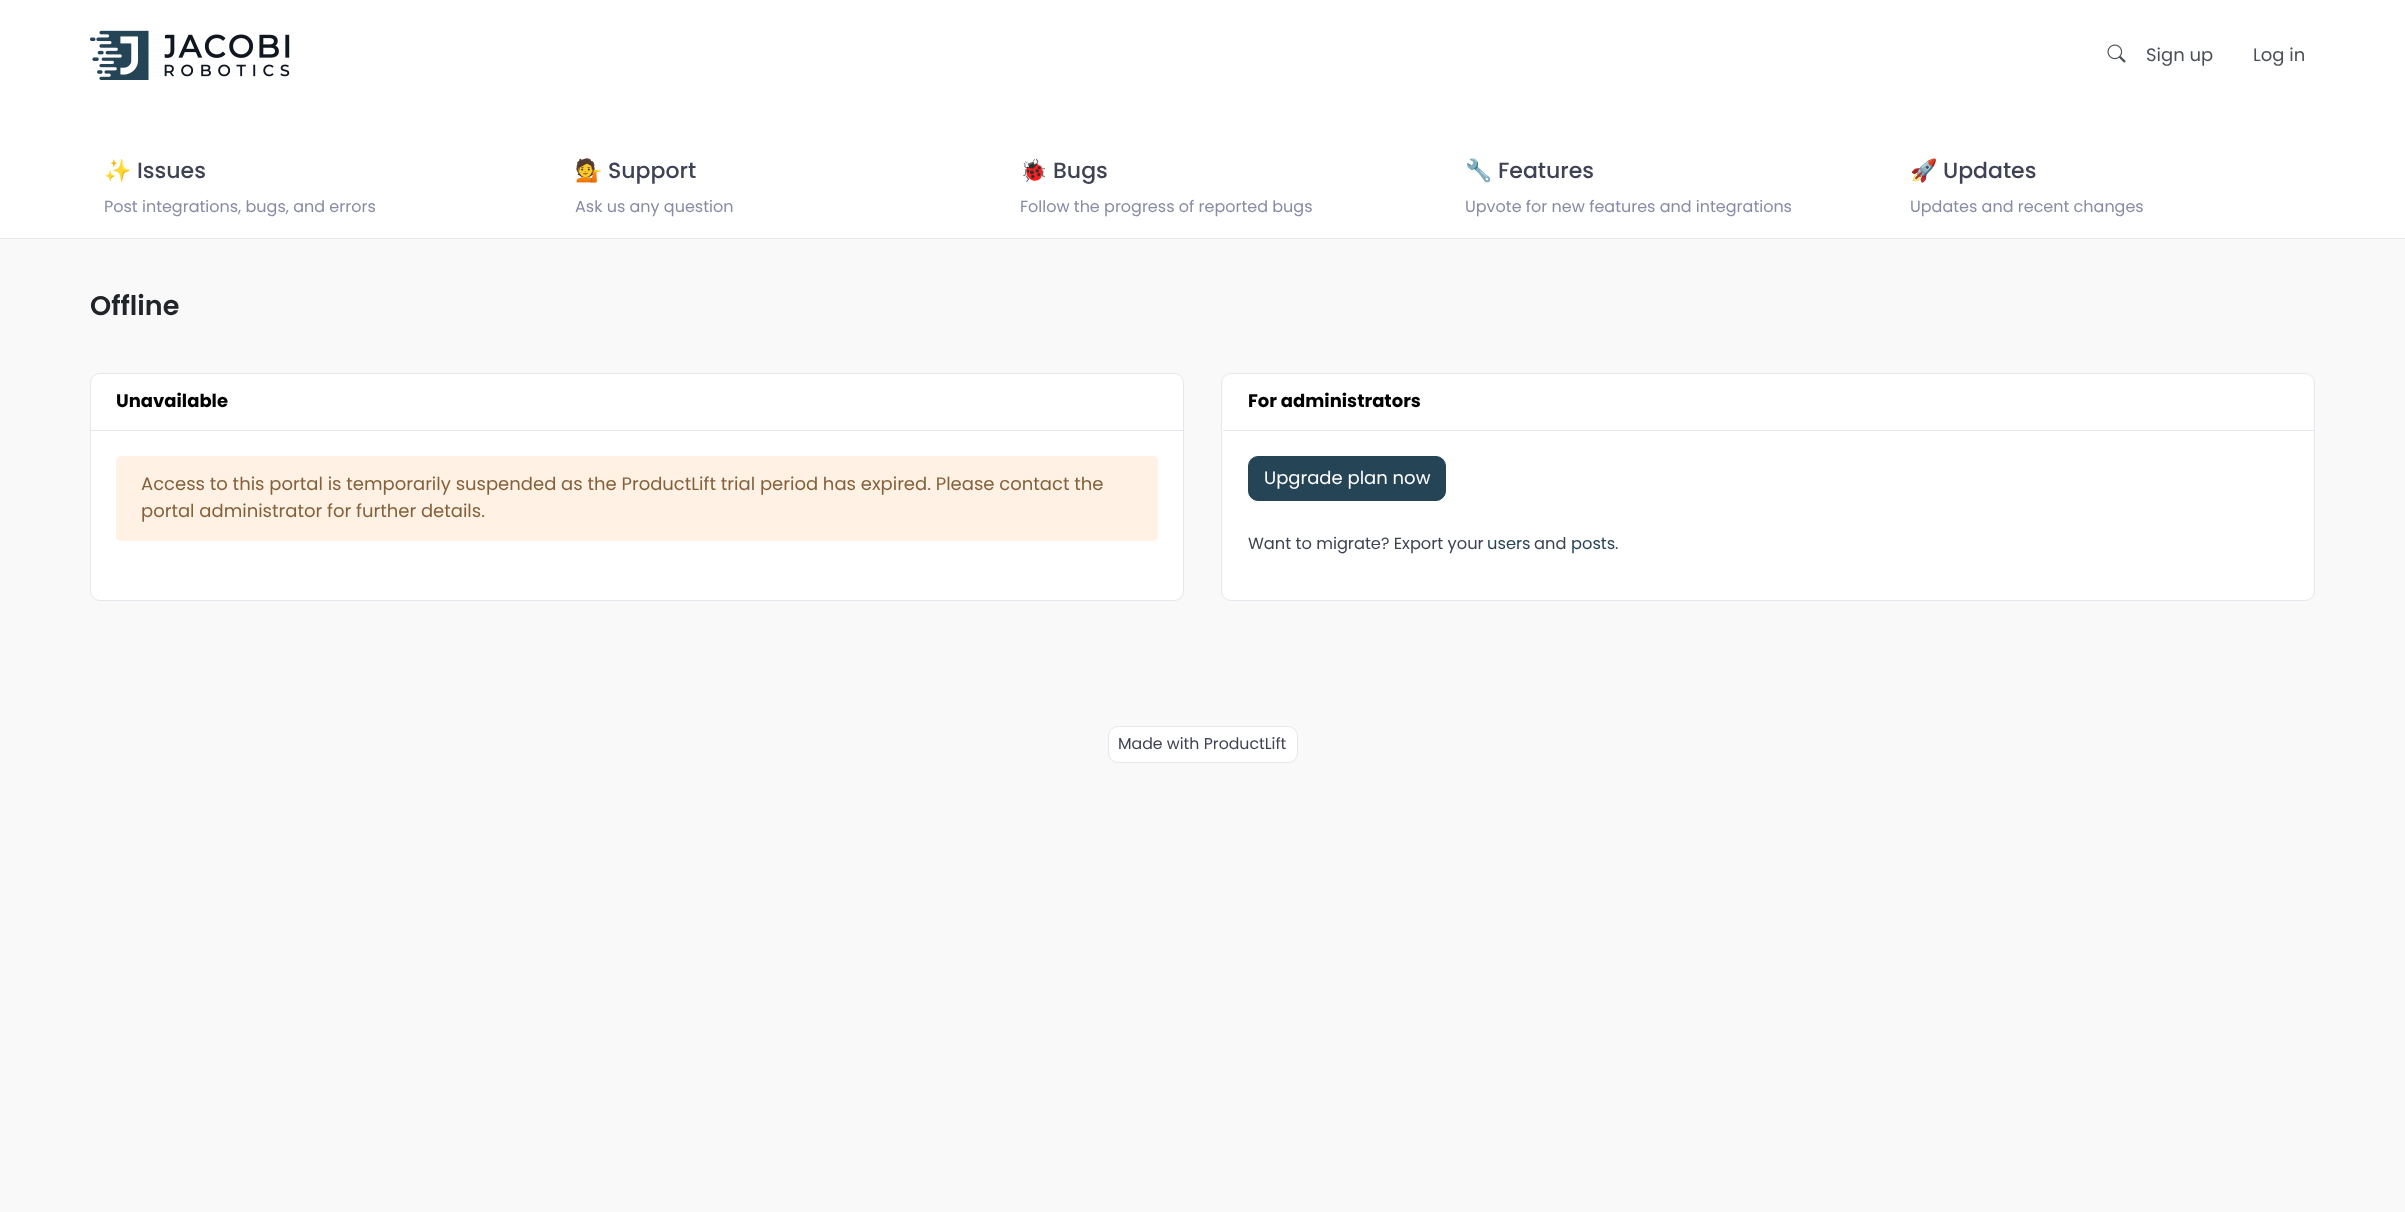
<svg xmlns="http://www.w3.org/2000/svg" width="2405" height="1212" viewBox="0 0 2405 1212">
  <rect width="100%" height="100%" fill="#f9f9f9"/>
  <path d="M0 0h2405v238H0z" fill="#fff"/>
  <image x="90" y="30" width="200" height="50" href="img/1.png"/>
  <image x="2107" y="44" width="19" height="19" href="img/2.png"/>
  <path d="M0 238h2405v1H0z" fill="#e4e7eb"/>
  <rect x="90.5" y="373.5" width="1093" height="227" rx="9.5" fill="#fff" stroke="#e4e7eb"/>
  <path d="M91 430h1092v1H91z" fill="#e4e7eb"/>
  <rect x="116" y="456" width="1042" height="85" rx="5" fill="#fff1e3"/>
  <rect x="1221.5" y="373.5" width="1093" height="227" rx="9.5" fill="#fff" stroke="#e4e7eb"/>
  <path d="M1223 430h1091v1H1223z" fill="#e4e7eb"/>
  <rect x="1248.5" y="456.5" width="197" height="44" rx="9.5" fill="#254557" stroke="#254557"/>
  <rect x="1108.5" y="726.5" width="189" height="36" rx="9.5" fill="#fff" stroke="#e4e7eb"/>
  <g font-family="Poppins" font-size="18" fill="#495057">
    <text x="2146" y="61">Sign up</text>
    <text x="2253" y="61">Log in</text>
  </g>
  <text x="104" y="178" font-family="Noto Color Emoji" font-size="22" fill="#3f4254">✨</text>
  <text x="137" y="178" font-family="Poppins" font-size="22" font-weight="500" fill="#3f4254">Issues</text>
  <text x="104" y="212" font-family="Poppins" font-size="16" fill="#878ba5">Post integrations, bugs, and errors</text>
  <text x="575" y="178" font-family="Noto Color Emoji" font-size="22" fill="#3f4254">💁</text>
  <text x="608" y="178" font-family="Poppins" font-size="22" font-weight="500" fill="#3f4254">Support</text>
  <text x="575" y="212" font-family="Poppins" font-size="16" fill="#878ba5">Ask us any question</text>
  <text x="1020" y="178" font-family="Noto Color Emoji" font-size="22" fill="#3f4254">🐞</text>
  <text x="1053" y="178" font-family="Poppins" font-size="22" font-weight="500" fill="#3f4254">Bugs</text>
  <text x="1020" y="212" font-family="Poppins" font-size="16" fill="#878ba5">Follow the progress of reported bugs</text>
  <text x="1465" y="178" font-family="Noto Color Emoji" font-size="22" fill="#3f4254">🔧</text>
  <text x="1498" y="178" font-family="Poppins" font-size="22" font-weight="500" fill="#3f4254">Features</text>
  <text x="1465" y="212" font-family="Poppins" font-size="16" fill="#878ba5">Upvote for new features and integrations</text>
  <text x="1910" y="178" font-family="Noto Color Emoji" font-size="22" fill="#3f4254">🚀</text>
  <text x="1943" y="178" font-family="Poppins" font-size="22" font-weight="500" fill="#3f4254">Updates</text>
  <text x="1910" y="212" font-family="Poppins" font-size="16" fill="#878ba5">Updates and recent changes</text>
  <text x="90" y="315" font-family="Poppins" font-size="27" font-weight="600" fill="#212529">Offline</text>
  <text x="116" y="407" font-family="Poppins" font-size="18" font-weight="bold" fill="#000">Unavailable</text>
  <g font-family="Poppins" font-size="18" fill="#84613c">
    <text x="141" y="490">Access to this portal is temporarily suspended as the ProductLift trial period has expired. Please contact the</text>
    <text x="141" y="517">portal administrator for further details.</text>
  </g>
  <text x="1248" y="407" font-family="Poppins" font-size="18" font-weight="bold" fill="#000">For administrators</text>
  <text x="1264" y="484" font-family="Poppins" font-size="18" fill="#fff">Upgrade plan now</text>
  <text x="1248" y="549" font-family="Poppins" font-size="16.25" fill="#3f4254">Want to migrate? Export your</text>
  <text x="1487" y="549" font-family="Poppins" font-size="16.25" fill="#254557">users</text>
  <text x="1534" y="549" font-family="Poppins" font-size="16.25" fill="#3f4254">and</text>
  <text x="1571" y="549" font-family="Poppins" font-size="16.25" fill="#254557">posts</text>
  <text x="1615" y="549" font-family="Poppins" font-size="16.25" fill="#3f4254">.</text>
  <text x="1118" y="749" font-family="Poppins" font-size="15.75" fill="#3f4254">Made with ProductLift</text>
</svg>
